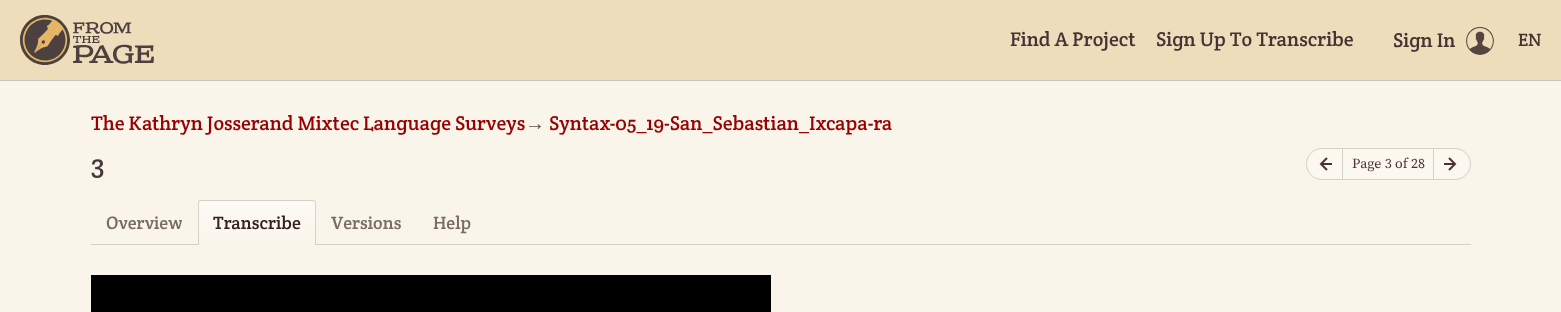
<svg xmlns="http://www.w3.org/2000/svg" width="1561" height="312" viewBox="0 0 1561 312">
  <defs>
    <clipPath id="clip1"><path d="M201 200H313C314.5 200 316 201.5 316 203V245H198V203C198 201.5 199.5 200 201 200Z"/></clipPath>
    <linearGradient id="g1" gradientUnits="userSpaceOnUse" x1="257" y1="201" x2="257" y2="245"><stop offset="0" stop-color="#fdfaf5"/><stop offset="1" stop-color="#faf5eb"/></linearGradient>
  </defs>
  <rect width="100%" height="100%" fill="#faf5eb"/>
  <path d="M0 80h1561v1H0z" fill="#c8c4bc"/>
  <path d="M0 0h1561v80H0z" fill="#edb"/>
  <image x="20" y="15" width="134" height="50" href="img/1.png"/>
  <image x="1466" y="27" width="28" height="28" href="img/2.png"/>
  <path d="M1322 148.5H1342.5V179.5H1322C1313.5 179.5 1306.5 172.5 1306.5 164C1306.5 155.5 1313.5 148.5 1322 148.5Z" fill="#fbf8f0" stroke="#d5d0c8"/>
  <image x="1319" y="157" width="13" height="14" href="img/3.png"/>
  <path d="M1343 149h90v30H1343z" fill="#fbf8f0"/>
  <path d="M1343 148h90v1H1343z" fill="#d5d0c8"/>
  <path d="M1343 179h90v1H1343z" fill="#d5d0c8"/>
  <path d="M1433.5 148.5H1455C1463.5 148.5 1470.5 155.5 1470.5 164C1470.5 172.5 1463.5 179.5 1455 179.5H1433.5Z" fill="#fbf8f0" stroke="#d5d0c8"/>
  <image x="1444" y="157" width="13" height="14" href="img/4.png"/>
  <path d="M91 244h1380v1H91z" fill="#d5d0c8"/>
  <g clip-path="url(#clip1)">
    <path d="M198 201h118v44H198z" fill="url(#g1)"/>
  </g>
  <path d="M201 200H313C315 200 316 201 316 203V245H198V203C198 201 199 200 201 200ZM201 201H313C314 201 315 202 315 203V245H199V203C199 202 200 201 201 201Z" fill="#00000026" fill-rule="evenodd"/>
  <path d="M91 275h680v37H91z" fill="#000"/>
  <g font-family="Crete Round" font-size="20" fill="#433">
    <text x="1010" y="46">Find A Project</text>
    <text x="1156" y="46">Sign Up To Transcribe</text>
    <text x="1393" y="47">Sign In</text>
  </g>
  <text x="1518" y="46" font-family="Crete Round" font-size="18" fill="#433">EN</text>
  <text x="91" y="130" font-family="Crete Round" font-size="20" fill="#900">The Kathryn Josserand Mixtec Language Surveys</text>
  <text x="525" y="130" font-family="Liberation Serif" font-size="20" fill="#634a47">→</text>
  <text x="549" y="130" font-family="Crete Round" font-size="20" fill="#900">Syntax-05_19-San_Sebastian_Ixcapa-ra</text>
  <text x="91" y="174" font-family="Crete Round" font-size="28" fill="#453939">3</text>
  <text x="1352" y="168" font-family="Source Serif Pro" font-size="14" fill="#4d312f">Page 3 of 28</text>
  <text x="106" y="229" font-family="Crete Round" font-size="18" fill="#796c68">Overview</text>
  <text x="213" y="229" font-family="Crete Round" font-size="18" fill="#322">Transcribe</text>
  <g font-family="Crete Round" font-size="18" fill="#796c68">
    <text x="331" y="229">Versions</text>
    <text x="433" y="229">Help</text>
  </g>
</svg>
